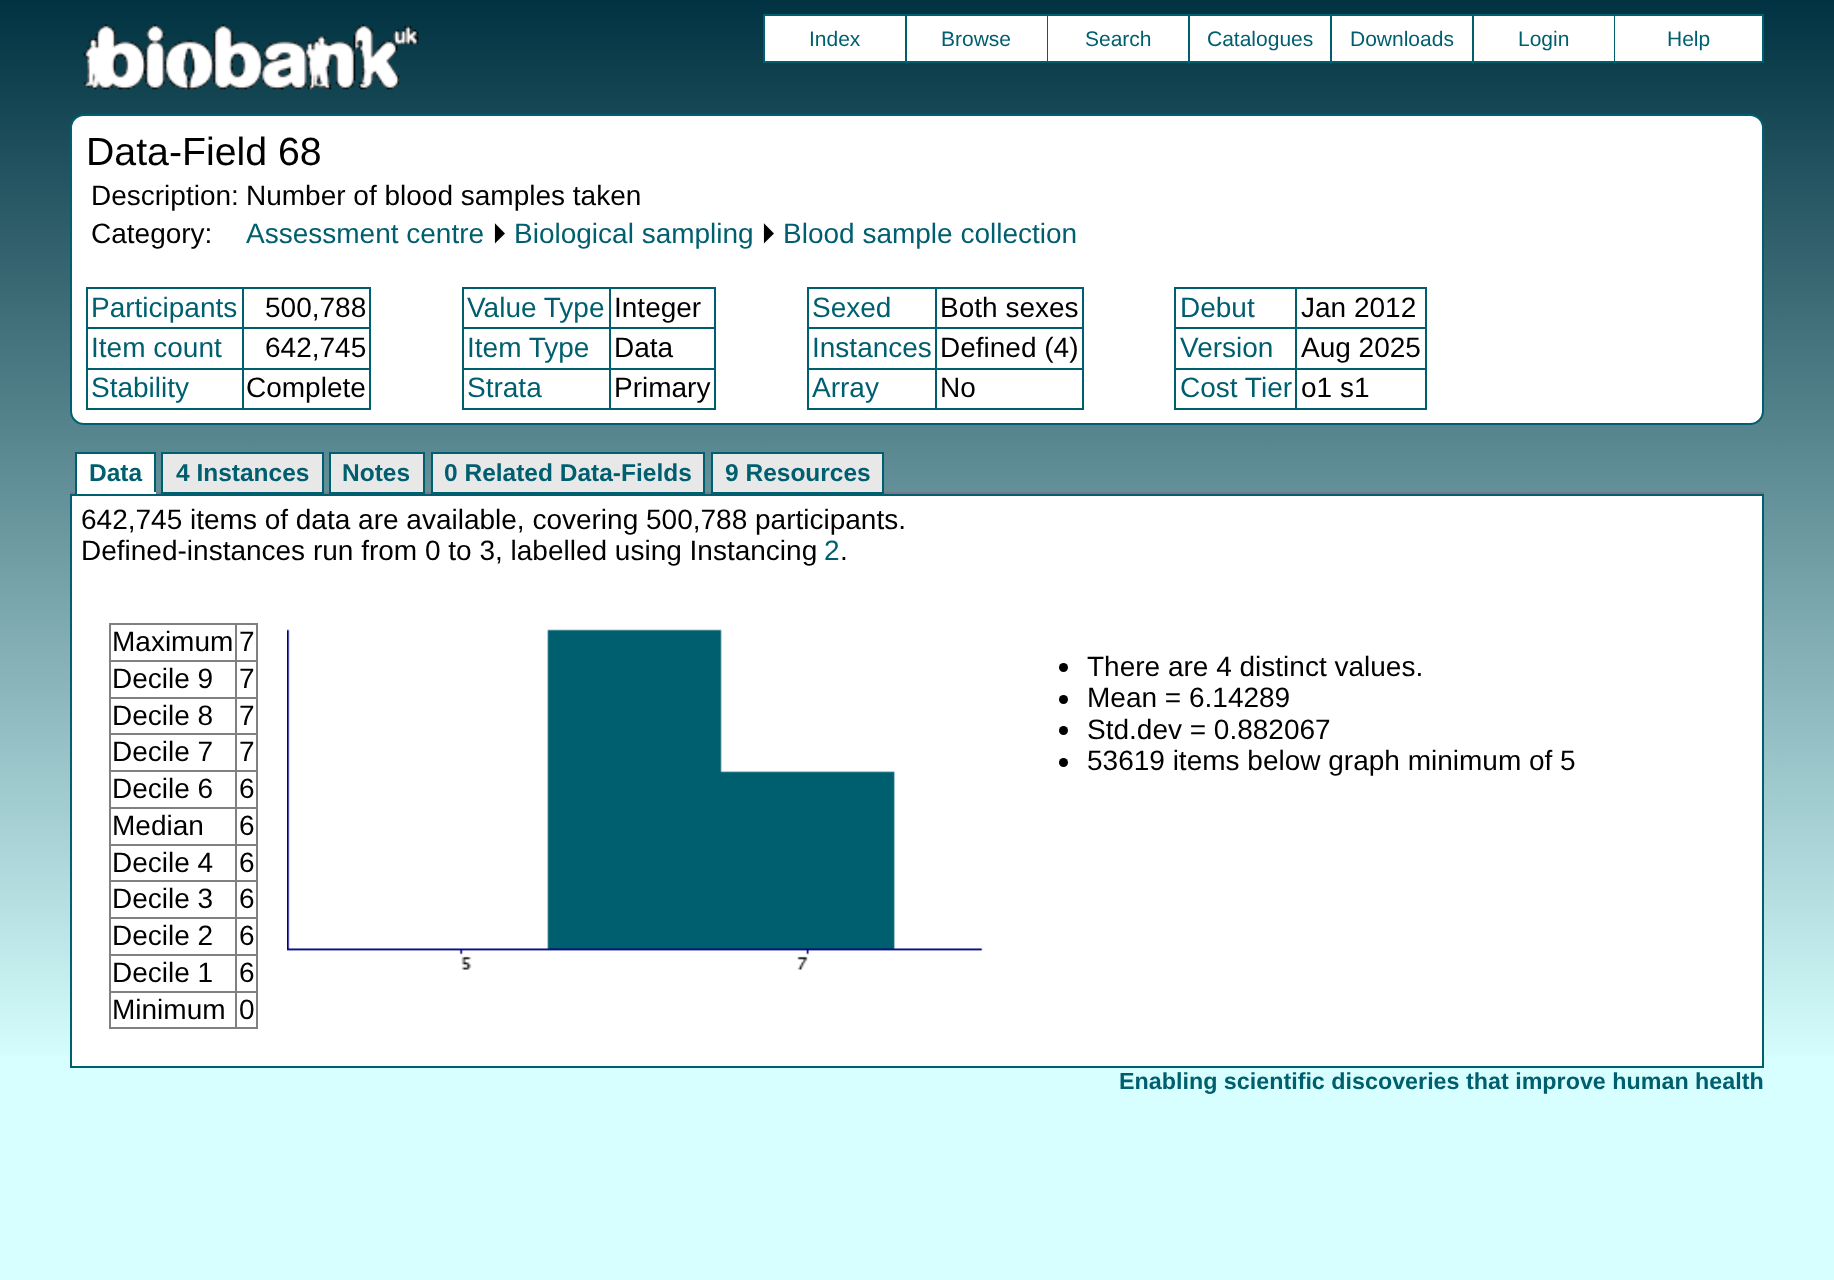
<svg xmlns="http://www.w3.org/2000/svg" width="1834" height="1280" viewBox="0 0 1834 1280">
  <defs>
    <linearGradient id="g1" gradientUnits="userSpaceOnUse" x1="0" y1="0" x2="0" y2="1068"><stop offset="0" stop-color="#003241"/><stop offset="1" stop-color="#d7ffff"/></linearGradient>
  </defs>
  <rect width="100%" height="100%" fill="#d7ffff"/>
  <path d="M0 0h1834v1056H0z" fill="url(#g1)"/>
  <image x="83" y="24" width="336" height="66" href="img/1.png"/>
  <path d="M763 14h851v2H763z" fill="#005f6f"/>
  <path d="M763 61h851v2H763z" fill="#005f6f"/>
  <path d="M763 14h2v49H763z" fill="#005f6f"/>
  <path d="M765 16h140v45H765z" fill="#fff"/>
  <path d="M905 14h2v49H905z" fill="#005f6f"/>
  <path d="M907 16h140v45H907z" fill="#fff"/>
  <path d="M1047 14h2v49H1047z" fill="#005f6f"/>
  <path d="M1048 16h140v45H1048z" fill="#fff"/>
  <path d="M1188 14h2v49H1188z" fill="#005f6f"/>
  <path d="M1190 16h140v45H1190z" fill="#fff"/>
  <path d="M1330 14h2v49H1330z" fill="#005f6f"/>
  <path d="M1332 16h140v45H1332z" fill="#fff"/>
  <path d="M1472 14h2v49H1472z" fill="#005f6f"/>
  <path d="M1474 16h140v45H1474z" fill="#fff"/>
  <path d="M1615 15h148v47H1615z" fill="none" stroke="#005f6f" stroke-width="2"/>
  <path d="M1615 16h147v45H1615z" fill="#fff"/>
  <rect x="71" y="115" width="1692" height="309" rx="13" fill="#fff" stroke="#005f6f" stroke-width="2"/>
  <path d="M242 287h129v2H242z" fill="#005f6f"/>
  <path d="M242 327h129v2H242z" fill="#005f6f"/>
  <path d="M242 368h129v2H242z" fill="#005f6f"/>
  <path d="M369 368h2v42H369z" fill="#005f6f"/>
  <path d="M242 408h129v2H242z" fill="#005f6f"/>
  <path d="M242 368h2v42H242z" fill="#005f6f"/>
  <path d="M86 368h157v2H86z" fill="#005f6f"/>
  <path d="M242 327h2v42H242z" fill="#005f6f"/>
  <path d="M86 327h157v2H86z" fill="#005f6f"/>
  <path d="M242 287h2v42H242z" fill="#005f6f"/>
  <path d="M86 287h157v2H86z" fill="#005f6f"/>
  <path d="M86 408h157v2H86z" fill="#005f6f"/>
  <path d="M86 368h2v42H86z" fill="#005f6f"/>
  <path d="M86 327h2v42H86z" fill="#005f6f"/>
  <path d="M86 287h2v42H86z" fill="#005f6f"/>
  <path d="M369 327h2v42H369z" fill="#005f6f"/>
  <path d="M369 287h2v42H369z" fill="#005f6f"/>
  <path d="M609 287h107v2H609z" fill="#005f6f"/>
  <path d="M609 327h107v2H609z" fill="#005f6f"/>
  <path d="M609 368h107v2H609z" fill="#005f6f"/>
  <path d="M714 368h2v42H714z" fill="#005f6f"/>
  <path d="M609 408h107v2H609z" fill="#005f6f"/>
  <path d="M609 368h2v42H609z" fill="#005f6f"/>
  <path d="M462 368h149v2H462z" fill="#005f6f"/>
  <path d="M609 327h2v42H609z" fill="#005f6f"/>
  <path d="M462 327h149v2H462z" fill="#005f6f"/>
  <path d="M609 287h2v42H609z" fill="#005f6f"/>
  <path d="M462 287h149v2H462z" fill="#005f6f"/>
  <path d="M462 408h149v2H462z" fill="#005f6f"/>
  <path d="M462 368h2v42H462z" fill="#005f6f"/>
  <path d="M462 327h2v42H462z" fill="#005f6f"/>
  <path d="M462 287h2v42H462z" fill="#005f6f"/>
  <path d="M714 327h2v42H714z" fill="#005f6f"/>
  <path d="M714 287h2v42H714z" fill="#005f6f"/>
  <path d="M935 287h148v2H935z" fill="#005f6f"/>
  <path d="M935 327h148v2H935z" fill="#005f6f"/>
  <path d="M935 368h148v2H935z" fill="#005f6f"/>
  <path d="M1082 368h2v42H1082z" fill="#005f6f"/>
  <path d="M935 408h148v2H935z" fill="#005f6f"/>
  <path d="M935 368h2v42H935z" fill="#005f6f"/>
  <path d="M807 368h129v2H807z" fill="#005f6f"/>
  <path d="M935 327h2v42H935z" fill="#005f6f"/>
  <path d="M807 327h129v2H807z" fill="#005f6f"/>
  <path d="M935 287h2v42H935z" fill="#005f6f"/>
  <path d="M807 287h129v2H807z" fill="#005f6f"/>
  <path d="M807 408h129v2H807z" fill="#005f6f"/>
  <path d="M807 368h2v42H807z" fill="#005f6f"/>
  <path d="M807 327h2v42H807z" fill="#005f6f"/>
  <path d="M807 287h2v42H807z" fill="#005f6f"/>
  <path d="M1082 327h2v42H1082z" fill="#005f6f"/>
  <path d="M1082 287h2v42H1082z" fill="#005f6f"/>
  <path d="M1295 287h131v2H1295z" fill="#005f6f"/>
  <path d="M1295 327h131v2H1295z" fill="#005f6f"/>
  <path d="M1295 368h131v2H1295z" fill="#005f6f"/>
  <path d="M1425 368h2v42H1425z" fill="#005f6f"/>
  <path d="M1295 408h131v2H1295z" fill="#005f6f"/>
  <path d="M1295 368h2v42H1295z" fill="#005f6f"/>
  <path d="M1174 368h123v2H1174z" fill="#005f6f"/>
  <path d="M1295 327h2v42H1295z" fill="#005f6f"/>
  <path d="M1174 327h123v2H1174z" fill="#005f6f"/>
  <path d="M1295 287h2v42H1295z" fill="#005f6f"/>
  <path d="M1174 287h123v2H1174z" fill="#005f6f"/>
  <path d="M1174 408h123v2H1174z" fill="#005f6f"/>
  <path d="M1174 368h2v42H1174z" fill="#005f6f"/>
  <path d="M1174 327h2v42H1174z" fill="#005f6f"/>
  <path d="M1174 287h2v42H1174z" fill="#005f6f"/>
  <path d="M1425 327h2v42H1425z" fill="#005f6f"/>
  <path d="M1425 287h2v42H1425z" fill="#005f6f"/>
  <path d="M70 492h1694v2H70z" fill="#778"/>
  <path d="M77 454h77v38H77z" fill="#fff"/>
  <path d="M75 452h81v2H75z" fill="#005f6f"/>
  <path d="M154 452h2v42H154z" fill="#005f6f"/>
  <path d="M75 492h81v2H75z" fill="#fff"/>
  <path d="M75 452h2v42H75z" fill="#005f6f"/>
  <path d="M162 453h161v40H162z" fill="#e8e8e8" stroke="#005f6f" stroke-width="2"/>
  <path d="M330 453h94v40H330z" fill="#e8e8e8" stroke="#005f6f" stroke-width="2"/>
  <path d="M432 453h272v40H432z" fill="#e8e8e8" stroke="#005f6f" stroke-width="2"/>
  <path d="M712 453h171v40H712z" fill="#e8e8e8" stroke="#005f6f" stroke-width="2"/>
  <path d="M71 495h1692v572H71z" fill="#fff" stroke="#005f6f" stroke-width="2"/>
  <path d="M235 623h22v2H235z" fill="#808080"/>
  <path d="M235 660h22v2H235z" fill="#808080"/>
  <path d="M235 697h22v2H235z" fill="#808080"/>
  <path d="M235 733h22v2H235z" fill="#808080"/>
  <path d="M235 770h22v2H235z" fill="#808080"/>
  <path d="M235 807h22v2H235z" fill="#808080"/>
  <path d="M235 844h22v2H235z" fill="#808080"/>
  <path d="M235 880h22v2H235z" fill="#808080"/>
  <path d="M235 917h22v2H235z" fill="#808080"/>
  <path d="M235 954h22v2H235z" fill="#808080"/>
  <path d="M235 991h22v2H235z" fill="#808080"/>
  <path d="M256 991h2v38H256z" fill="#808080"/>
  <path d="M235 1027h22v2H235z" fill="#808080"/>
  <path d="M235 991h2v38H235z" fill="#808080"/>
  <path d="M109 991h127v2H109z" fill="#808080"/>
  <path d="M235 954h2v38H235z" fill="#808080"/>
  <path d="M109 954h127v2H109z" fill="#808080"/>
  <path d="M235 917h2v39H235z" fill="#808080"/>
  <path d="M109 917h127v2H109z" fill="#808080"/>
  <path d="M235 880h2v39H235z" fill="#808080"/>
  <path d="M109 880h127v2H109z" fill="#808080"/>
  <path d="M235 844h2v38H235z" fill="#808080"/>
  <path d="M109 844h127v2H109z" fill="#808080"/>
  <path d="M235 807h2v38H235z" fill="#808080"/>
  <path d="M109 807h127v2H109z" fill="#808080"/>
  <path d="M235 770h2v39H235z" fill="#808080"/>
  <path d="M109 770h127v2H109z" fill="#808080"/>
  <path d="M235 733h2v39H235z" fill="#808080"/>
  <path d="M109 733h127v2H109z" fill="#808080"/>
  <path d="M235 697h2v38H235z" fill="#808080"/>
  <path d="M109 697h127v2H109z" fill="#808080"/>
  <path d="M235 660h2v38H235z" fill="#808080"/>
  <path d="M109 660h127v2H109z" fill="#808080"/>
  <path d="M235 623h2v39H235z" fill="#808080"/>
  <path d="M109 623h127v2H109z" fill="#808080"/>
  <path d="M109 1027h127v2H109z" fill="#808080"/>
  <path d="M109 991h2v38H109z" fill="#808080"/>
  <path d="M109 954h2v38H109z" fill="#808080"/>
  <path d="M109 917h2v39H109z" fill="#808080"/>
  <path d="M109 880h2v39H109z" fill="#808080"/>
  <path d="M109 844h2v38H109z" fill="#808080"/>
  <path d="M109 807h2v38H109z" fill="#808080"/>
  <path d="M109 770h2v39H109z" fill="#808080"/>
  <path d="M109 733h2v39H109z" fill="#808080"/>
  <path d="M109 697h2v38H109z" fill="#808080"/>
  <path d="M109 660h2v38H109z" fill="#808080"/>
  <path d="M109 623h2v39H109z" fill="#808080"/>
  <path d="M256 954h2v38H256z" fill="#808080"/>
  <path d="M256 917h2v39H256z" fill="#808080"/>
  <path d="M256 880h2v39H256z" fill="#808080"/>
  <path d="M256 844h2v38H256z" fill="#808080"/>
  <path d="M256 807h2v38H256z" fill="#808080"/>
  <path d="M256 770h2v39H256z" fill="#808080"/>
  <path d="M256 733h2v39H256z" fill="#808080"/>
  <path d="M256 697h2v38H256z" fill="#808080"/>
  <path d="M256 660h2v38H256z" fill="#808080"/>
  <path d="M256 623h2v39H256z" fill="#808080"/>
  <image x="287" y="629" width="696" height="341" href="img/2.png"/>
  <circle cx="1063.5" cy="667.5" r="4.5" fill="#000"/>
  <circle cx="1063.5" cy="699.5" r="4.5" fill="#000"/>
  <circle cx="1063.5" cy="730.5" r="4.5" fill="#000"/>
  <circle cx="1063.5" cy="762.5" r="4.5" fill="#000"/>
  <g font-family="Liberation Sans" font-size="21" fill="#005f6f">
    <text x="809" y="46">Index</text>
    <text x="941" y="46">Browse</text>
    <text x="1085" y="46">Search</text>
    <text x="1207" y="46">Catalogues</text>
    <text x="1350" y="46">Downloads</text>
    <text x="1518" y="46">Login</text>
    <text x="1667" y="46">Help</text>
  </g>
  <text x="86" y="165" font-family="Liberation Sans" font-size="39.25" fill="#000">Data-Field 68</text>
  <g font-family="Liberation Sans" font-size="28" fill="#000">
    <text x="91" y="205">Description:</text>
    <text x="246" y="205">Number of blood samples taken</text>
    <text x="91" y="243">Category:</text>
  </g>
  <text x="246" y="243" font-family="Liberation Sans" font-size="28" fill="#005f6f">Assessment centre</text>
  <text x="492" y="243" font-family="FreeSans" font-size="28" fill="#000">⏵</text>
  <text x="514" y="243" font-family="Liberation Sans" font-size="28" fill="#005f6f">Biological sampling</text>
  <text x="761" y="243" font-family="FreeSans" font-size="28" fill="#000">⏵</text>
  <g font-family="Liberation Sans" font-size="28" fill="#005f6f">
    <text x="783" y="243">Blood sample collection</text>
    <text x="91" y="317">Participants</text>
  </g>
  <text x="265" y="317" font-family="Liberation Sans" font-size="28" fill="#000">500,788</text>
  <text x="467" y="317" font-family="Liberation Sans" font-size="28" fill="#005f6f">Value Type</text>
  <text x="614" y="317" font-family="Liberation Sans" font-size="28" fill="#000">Integer</text>
  <text x="812" y="317" font-family="Liberation Sans" font-size="28" fill="#005f6f">Sexed</text>
  <text x="940" y="317" font-family="Liberation Sans" font-size="28" fill="#000">Both sexes</text>
  <text x="1180" y="317" font-family="Liberation Sans" font-size="28" fill="#005f6f">Debut</text>
  <text x="1301" y="317" font-family="Liberation Sans" font-size="28" fill="#000">Jan 2012</text>
  <text x="91" y="357" font-family="Liberation Sans" font-size="28" fill="#005f6f">Item count</text>
  <text x="265" y="357" font-family="Liberation Sans" font-size="28" fill="#000">642,745</text>
  <text x="467" y="357" font-family="Liberation Sans" font-size="28" fill="#005f6f">Item Type</text>
  <text x="614" y="357" font-family="Liberation Sans" font-size="28" fill="#000">Data</text>
  <text x="812" y="357" font-family="Liberation Sans" font-size="28" fill="#005f6f">Instances</text>
  <text x="940" y="357" font-family="Liberation Sans" font-size="28" fill="#000">Defined (4)</text>
  <text x="1180" y="357" font-family="Liberation Sans" font-size="28" fill="#005f6f">Version</text>
  <text x="1301" y="357" font-family="Liberation Sans" font-size="28" fill="#000">Aug 2025</text>
  <text x="91" y="397" font-family="Liberation Sans" font-size="28" fill="#005f6f">Stability</text>
  <text x="246" y="397" font-family="Liberation Sans" font-size="28" fill="#000">Complete</text>
  <text x="467" y="397" font-family="Liberation Sans" font-size="28" fill="#005f6f">Strata</text>
  <text x="614" y="397" font-family="Liberation Sans" font-size="28" fill="#000">Primary</text>
  <text x="812" y="397" font-family="Liberation Sans" font-size="28" fill="#005f6f">Array</text>
  <text x="940" y="397" font-family="Liberation Sans" font-size="28" fill="#000">No</text>
  <text x="1180" y="397" font-family="Liberation Sans" font-size="28" fill="#005f6f">Cost Tier</text>
  <text x="1301" y="397" font-family="Liberation Sans" font-size="28" fill="#000">o1 s1</text>
  <g font-family="Liberation Sans" font-size="24.5" font-weight="bold" fill="#005f6f">
    <text x="89" y="481">Data</text>
    <text x="176" y="481">4 Instances</text>
    <text x="342" y="481">Notes</text>
    <text x="444" y="481">0 Related Data-Fields</text>
    <text x="725" y="481">9 Resources</text>
  </g>
  <g font-family="Liberation Sans" font-size="28" fill="#000">
    <text x="81" y="529">642,745 items of data are available, covering 500,788 participants.</text>
    <text x="81" y="560">Defined-instances run from 0 to 3, labelled using Instancing</text>
  </g>
  <text x="824" y="560" font-family="Liberation Sans" font-size="28" fill="#005f6f">2</text>
  <g font-family="Liberation Sans" font-size="28" fill="#000">
    <text x="840" y="560">.</text>
    <text x="112" y="651">Maximum</text>
    <text x="239" y="651">7</text>
    <text x="112" y="688">Decile 9</text>
    <text x="239" y="688">7</text>
    <text x="112" y="725">Decile 8</text>
    <text x="239" y="725">7</text>
    <text x="112" y="761">Decile 7</text>
    <text x="239" y="761">7</text>
    <text x="112" y="798">Decile 6</text>
    <text x="239" y="798">6</text>
    <text x="112" y="835">Median</text>
    <text x="239" y="835">6</text>
    <text x="112" y="872">Decile 4</text>
    <text x="239" y="872">6</text>
    <text x="112" y="908">Decile 3</text>
    <text x="239" y="908">6</text>
    <text x="112" y="945">Decile 2</text>
    <text x="239" y="945">6</text>
    <text x="112" y="982">Decile 1</text>
    <text x="239" y="982">6</text>
    <text x="112" y="1019">Minimum</text>
    <text x="239" y="1019">0</text>
    <text x="1087" y="676">There are 4 distinct values.</text>
    <text x="1087" y="707">Mean = 6.14289</text>
    <text x="1087" y="739">Std.dev = 0.882067</text>
    <text x="1087" y="770">53619 items below graph minimum of 5</text>
  </g>
  <text x="1119" y="1089" font-family="Liberation Sans" font-size="23.3" font-weight="bold" fill="#005f6f">Enabling scientific discoveries that improve human health</text>
</svg>
